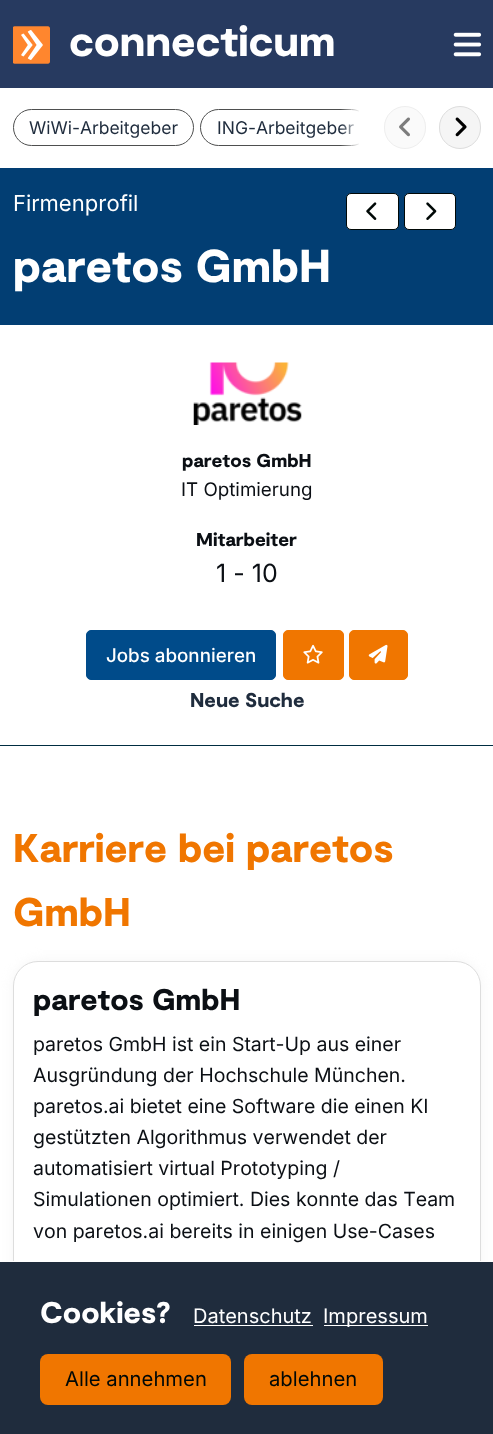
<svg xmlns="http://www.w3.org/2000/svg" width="493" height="1434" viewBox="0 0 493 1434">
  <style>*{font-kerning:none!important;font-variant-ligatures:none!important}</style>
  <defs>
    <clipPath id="clip1"><path d="M13 109h346v37H13z"/></clipPath>
    <linearGradient id="g1" gradientUnits="userSpaceOnUse" x1="363" y1="128" x2="338" y2="128"><stop offset="0.1" stop-color="#fff"/><stop offset="0.9" stop-color="#fff" stop-opacity="0"/></linearGradient>
  </defs>
  <rect width="100%" height="100%" fill="#fff"/>
  <path d="M0 0h493v88H0z" fill="#273a60"/>
  <image x="13" y="26" width="37" height="38" href="img/1.png"/>
  <image x="453" y="32" width="29" height="25" href="img/2.png"/>
  <rect x="384.5" y="106.5" width="41" height="42" rx="20.5" fill="#fafafa" stroke="#eee"/>
  <image x="399" y="117" width="11" height="20" href="img/3.png"/>
  <rect x="439.5" y="106.5" width="41" height="42" rx="20.5" fill="#f5f5f5" stroke="#ddd"/>
  <image x="455" y="117" width="12" height="20" href="img/4.png"/>
  <rect x="13.5" y="109.5" width="180" height="36" rx="18" fill="none" stroke="#4e4f4f"/>
  <g clip-path="url(#clip1)">
    <rect x="200.5" y="109.5" width="169" height="36" rx="18" fill="none" stroke="#4e4f4f"/>
  </g>
  <path d="M0 168h493v157H0z" fill="#023e73"/>
  <rect x="346.5" y="193.5" width="52" height="36" rx="4.5" fill="#fff" stroke="#000806"/>
  <image x="366" y="202" width="11" height="18" href="img/5.png"/>
  <rect x="404.5" y="193.5" width="51" height="36" rx="4.5" fill="#fff" stroke="#000806"/>
  <image x="426" y="202" width="11" height="18" href="img/6.png"/>
  <image x="193" y="362" width="109" height="63" href="img/7.png"/>
  <rect x="86.5" y="630.5" width="189" height="49" rx="4.5" fill="#004b8a" stroke="#004b8a"/>
  <rect x="283.5" y="630.5" width="60" height="49" rx="4.5" fill="#f07600" stroke="#f07600"/>
  <image x="303" y="644" width="20" height="20" href="img/8.png"/>
  <rect x="349.5" y="630.5" width="58" height="49" rx="4.5" fill="#f07600" stroke="#f07600"/>
  <image x="368" y="644" width="20" height="20" href="img/9.png"/>
  <path d="M0 745h493v1H0z" fill="#002d41"/>
  <rect x="13" y="961" width="468" height="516" rx="25" fill="#f5f5f5" filter="blur(6px)"/>
  <rect x="13.5" y="961.5" width="467" height="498" rx="24.5" fill="#fff" stroke="#ddd"/>
  <path d="M0 1262h493v172H0z" fill="#1f2c3d"/>
  <path d="M9 1261h484v1H9z" fill="#fff"/>
  <path d="M194 1325h119v1H194z" fill="#fff"/>
  <path d="M324 1325h104v1H324z" fill="#fff"/>
  <rect x="40" y="1354" width="191" height="51" rx="8" fill="#f07600"/>
  <rect x="244" y="1354" width="139" height="51" rx="8" fill="#f07600"/>
  <text x="69" y="56" font-family="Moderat" font-size="42.5" font-weight="900" fill="#fff">connecticum</text>
  <g font-family="Inter" font-size="17.5" fill="#1f2c3d">
    <text x="29" y="134">WiWi-Arbeitgeber</text>
    <text x="217" y="134">ING-Arbeitgeber</text>
  </g>
  <path d="M341 109h18v37H341z" fill="url(#g1)"/>
  <text x="13" y="211" font-family="Inter" font-size="22" fill="#fff">Firmenprofil</text>
  <text x="13" y="282" font-family="Moderat" font-size="46" font-weight="900" fill="#fff">paretos GmbH</text>
  <text x="182" y="467" font-family="Moderat" font-size="18.75" font-weight="900" fill="#0b0f14">paretos GmbH</text>
  <text x="181" y="496" font-family="'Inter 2'" font-size="18.75" fill="#0b0f14">IT Optimierung</text>
  <text x="196" y="546" font-family="Moderat" font-size="18.75" font-weight="900" fill="#0b0f14">Mitarbeiter</text>
  <text x="216" y="582" font-family="'Inter 2'" font-size="25" fill="#0b0f14">1 - 10</text>
  <text x="106" y="662" font-family="Inter" font-size="18.75" font-weight="500" fill="#fff">Jobs abonnieren</text>
  <text x="190" y="707" font-family="Moderat" font-size="20" font-weight="900" fill="#1f2c3d">Neue Suche</text>
  <g font-family="Moderat" font-size="40" font-weight="900" fill="#f07600">
    <text x="13" y="862">Karriere bei paretos</text>
    <text x="13" y="926">GmbH</text>
  </g>
  <text x="33" y="1010" font-family="Moderat" font-size="30" font-weight="900" fill="#0b0f14">paretos GmbH</text>
  <g font-family="'Inter 2'" font-size="19.5" fill="#0b0f14">
    <text x="33" y="1051">paretos GmbH ist ein Start-Up aus einer</text>
    <text x="33" y="1082">Ausgründung der Hochschule München.</text>
    <text x="33" y="1113">paretos.ai bietet eine Software die einen KI</text>
    <text x="33" y="1144">gestützten Algorithmus verwendet der</text>
    <text x="33" y="1175">automatisiert virtual Prototyping /</text>
    <text x="33" y="1206">Simulationen optimiert. Dies konnte das Team</text>
    <text x="33" y="1238">von paretos.ai bereits in einigen Use-Cases</text>
  </g>
  <text x="40" y="1323" font-family="Moderat" font-size="30" font-weight="900" fill="#fff">Cookies?</text>
  <g font-family="Inter" font-size="20" fill="#fff">
    <text x="193" y="1323">Datenschutz</text>
    <text x="323" y="1323">Impressum</text>
  </g>
  <g font-family="Inter" font-size="20.25" fill="#000806">
    <text x="65" y="1386">Alle annehmen</text>
    <text x="269" y="1386">ablehnen</text>
  </g>
</svg>
